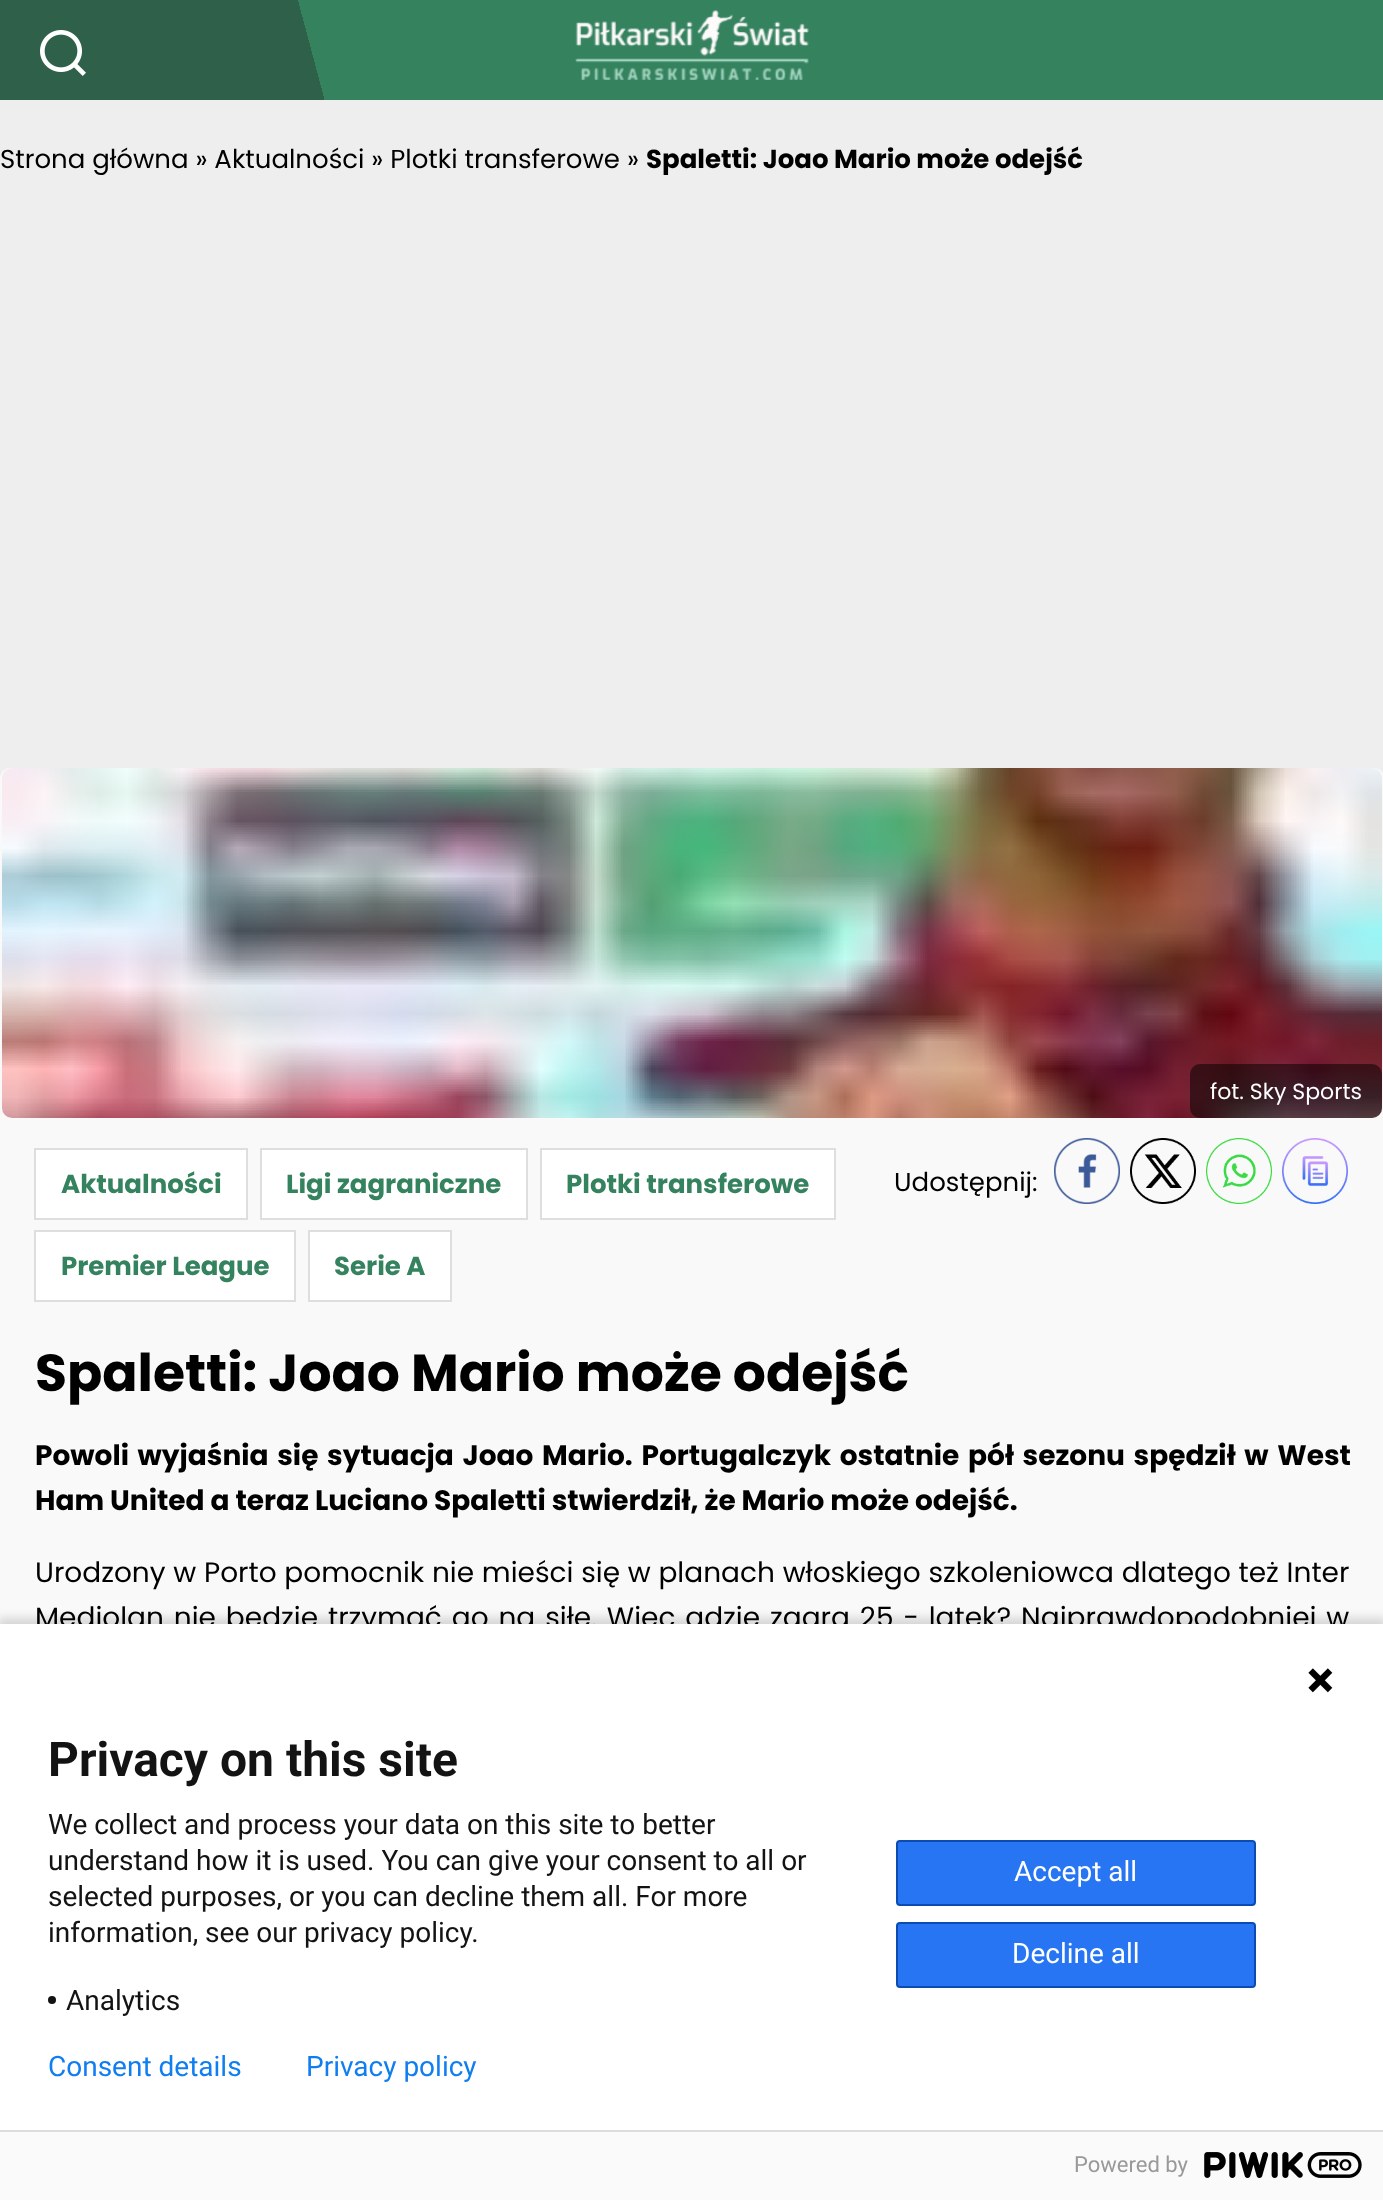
<svg xmlns="http://www.w3.org/2000/svg" width="1383" height="2200" viewBox="0 0 1383 2200">
  <defs>
    <linearGradient id="g1" gradientUnits="userSpaceOnUse" x1="34" y1="226" x2="1350" y2="-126"><stop offset="0.23" stop-color="#2f6049"/><stop offset="0.23" stop-color="#35825f"/></linearGradient>
  </defs>
  <rect width="100%" height="100%" fill="#eee"/>
  <path d="M0 0h1383v100H0z" fill="url(#g1)"/>
  <image x="40" y="30" width="46" height="46" href="img/1.png"/>
  <image x="575" y="10" width="234" height="70" href="img/2.png"/>
  <rect y="768" width="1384" height="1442" rx="10" fill="#f9f9f9"/>
  <image x="2" y="768" width="1380" height="350" href="img/3.png"/>
  <rect x="1190" y="1064" width="192" height="54" rx="10" fill="#00000080"/>
  <path d="M35 1149h212v70H35z" fill="#fff" stroke="#dedede" stroke-width="2"/>
  <path d="M261 1149h266v70H261z" fill="#fff" stroke="#dedede" stroke-width="2"/>
  <path d="M541 1149h294v70H541z" fill="#fff" stroke="#dedede" stroke-width="2"/>
  <path d="M35 1231h260v70H35z" fill="#fff" stroke="#dedede" stroke-width="2"/>
  <path d="M309 1231h142v70H309z" fill="#fff" stroke="#dedede" stroke-width="2"/>
  <image x="1054" y="1138" width="66" height="66" href="img/4.png"/>
  <image x="1130" y="1138" width="66" height="66" href="img/5.png"/>
  <image x="1206" y="1138" width="66" height="66" href="img/6.png"/>
  <image x="1282" y="1138" width="66" height="66" href="img/7.png"/>
  <path d="M-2 1618h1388v580H-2z" fill="#00000024" filter="blur(5px)"/>
  <path d="M0 2132h1383v68H0z" fill="#fafafa"/>
  <path d="M0 2130h1383v2H0z" fill="#ddd"/>
  <image x="1204" y="2152" width="158" height="26" href="img/9.png"/>
  <text x="0" y="168" font-family="Poppins" font-size="26" fill="#000">Strona główna » Aktualności » Plotki transferowe »</text>
  <text x="646" y="168" font-family="Poppins" font-size="26" font-weight="bold" fill="#000">Spaletti: Joao Mario może odejść</text>
  <text x="1210" y="1099" font-family="Poppins" font-size="22" fill="#fff">fot. Sky Sports</text>
  <g font-family="Poppins" font-size="26" font-weight="bold" fill="#35825f">
    <text x="61" y="1193">Aktualności</text>
    <text x="286" y="1193">Ligi zagraniczne</text>
    <text x="566" y="1193">Plotki transferowe</text>
    <text x="61" y="1275">Premier League</text>
    <text x="334" y="1275">Serie A</text>
  </g>
  <text x="894" y="1191" font-family="Poppins" font-size="26" fill="#000">Udostępnij:</text>
  <text x="35" y="1391" font-family="Poppins" font-size="52" font-weight="bold" fill="#000">Spaletti: Joao Mario może odejść</text>
  <g font-family="Poppins" font-size="28" font-weight="bold" fill="#000">
    <text x="35" y="1465" word-spacing="2.75">Powoli wyjaśnia się sytuacja Joao Mario. Portugalczyk ostatnie pół sezonu spędził w West</text>
    <text x="35" y="1510">Ham United a teraz Luciano Spaletti stwierdził, że Mario może odejść.</text>
  </g>
  <g font-family="Poppins" font-size="28" fill="#000">
    <text x="35" y="1582" word-spacing="0.25">Urodzony w Porto pomocnik nie mieści się w planach włoskiego szkoleniowca dlatego też Inter</text>
    <text x="35" y="1627" word-spacing="2.4">Mediolan nie będzie trzymać go na siłę. Więc gdzie zagra 25 - latek? Najprawdopodobniej w</text>
  </g>
  <path d="M0 1624h1383v506H0z" fill="#fff"/>
  <image x="1308" y="1668" width="25" height="25" href="img/8.png"/>
  <text x="48" y="1776" font-family="Roboto" font-size="48" font-weight="bold" fill="#131313">Privacy on this site</text>
  <g font-family="Roboto" font-size="28" fill="#131313">
    <text x="48" y="1834">We collect and process your data on this site to better</text>
    <text x="48" y="1870">understand how it is used. You can give your consent to all or</text>
    <text x="48" y="1906">selected purposes, or you can decline them all. For more</text>
    <text x="48" y="1942">information, see our privacy policy.</text>
  </g>
  <circle cx="52" cy="2000" r="4" fill="#131313"/>
  <text x="66" y="2010" font-family="Roboto" font-size="28" fill="#131313">Analytics</text>
  <rect x="897" y="1841" width="358" height="64" rx="3" fill="#2775f2" stroke="#0b4bb3" stroke-width="2"/>
  <text x="1014" y="1881" font-family="Roboto" font-size="28" fill="#fff">Accept all</text>
  <rect x="897" y="1923" width="358" height="64" rx="3" fill="#2775f2" stroke="#0b4bb3" stroke-width="2"/>
  <text x="1012" y="1963" font-family="Roboto" font-size="28" fill="#fff">Decline all</text>
  <g font-family="Roboto" font-size="28" fill="#107ef1">
    <text x="48" y="2076">Consent details</text>
    <text x="306" y="2076">Privacy policy</text>
  </g>
  <text x="1074" y="2172" font-family="Roboto" font-size="22" fill="#999">Powered by</text>
</svg>
